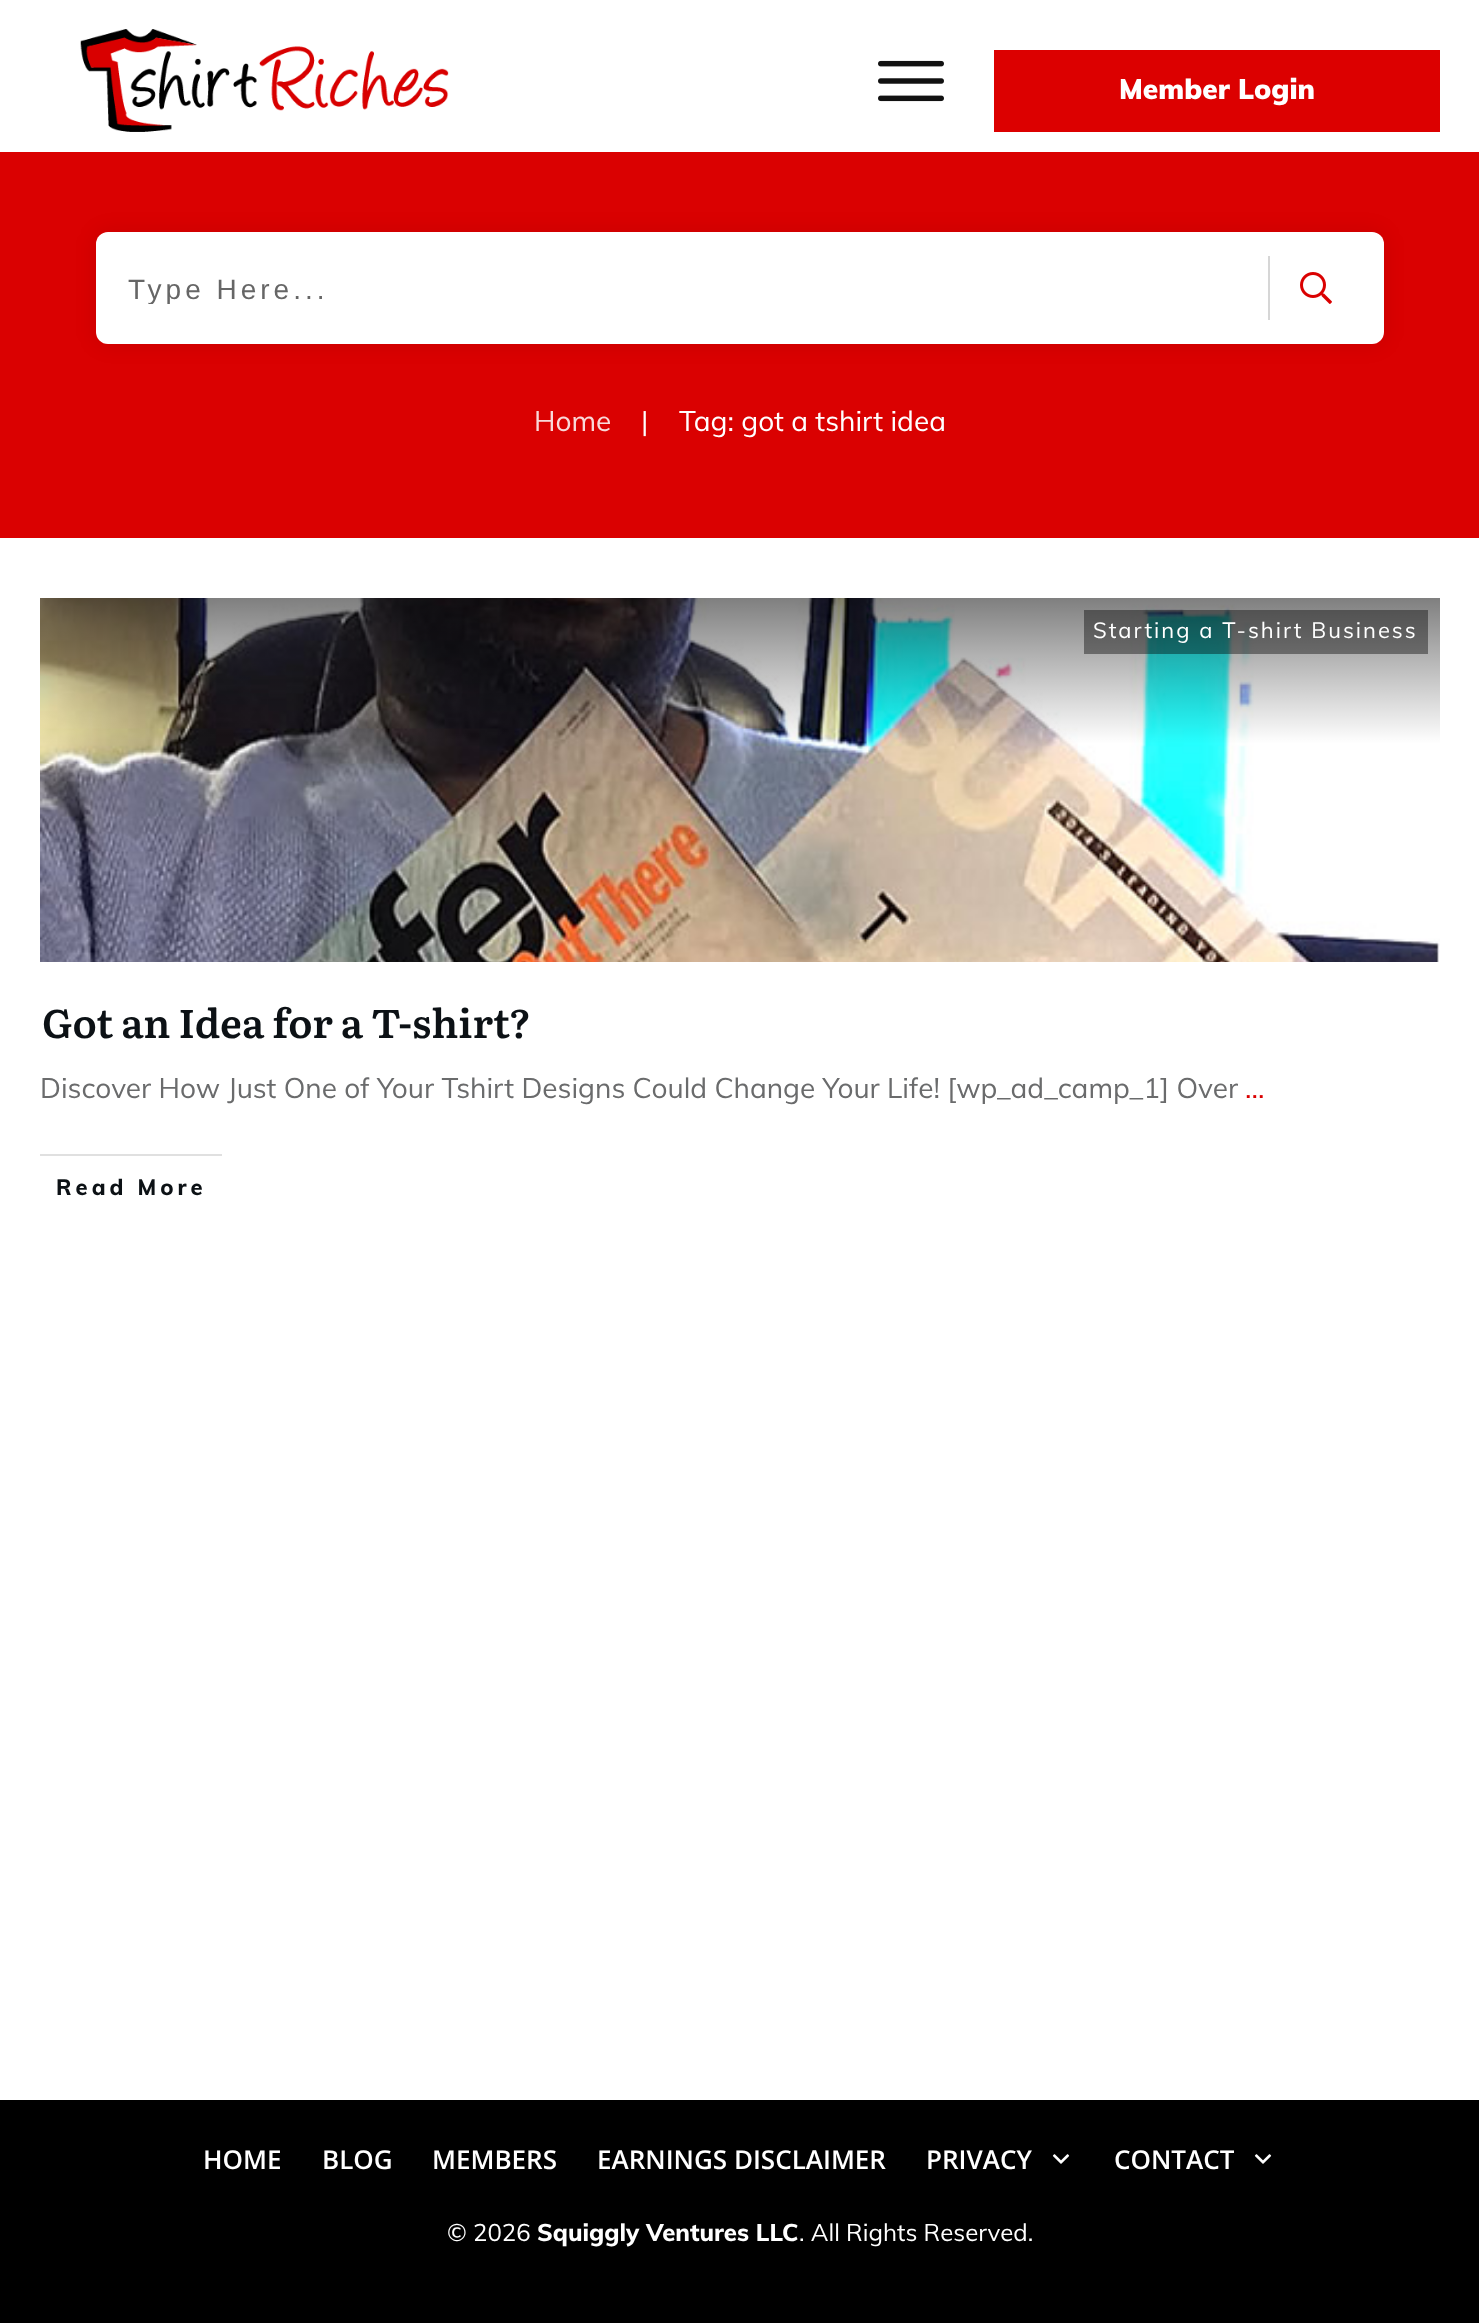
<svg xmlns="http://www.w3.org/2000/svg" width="1479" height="2323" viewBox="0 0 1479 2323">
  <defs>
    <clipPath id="clip1"><path d="M128 272h1124v32H128z"/></clipPath>
    <clipPath id="clip2"><path d="M1114 2134h120v52H1114z"/></clipPath>
  </defs>
  <rect width="100%" height="100%" fill="#fff"/>
  <image x="80" y="29" width="369" height="103" href="img/1.png"/>
  <image x="878" y="60" width="66" height="42" href="img/2.png"/>
  <path d="M994 50h446v82H994z" fill="#dc0000"/>
  <path d="M0 152h1479v386H0z" fill="#da0101"/>
  <rect x="96" y="232" width="1288" height="112" rx="12" fill="#00000014" filter="blur(11px)"/>
  <rect x="96" y="232" width="1288" height="112" rx="12" fill="#fff"/>
  <path d="M1268 256h2v64H1268z" fill="#d6d6d6"/>
  <image x="1300" y="272" width="32" height="32" href="img/3.png"/>
  <image x="40" y="598" width="1400" height="364" href="img/4.png"/>
  <path d="M1084 610h344v44H1084z" fill="#00000066"/>
  <path d="M40 1154h182v2H40z" fill="#e0e0e0"/>
  <path d="M0 2100h1479v223H0z" fill="#000"/>
  <image x="1052" y="2154" width="18" height="10" href="img/5.png"/>
  <image x="1254" y="2154" width="18" height="10" href="img/5.png"/>
  <text x="1119" y="99" font-family="Muli" font-size="28" font-weight="900" fill="#fff">Member Login</text>
  <g clip-path="url(#clip1)">
    <text x="128" y="299" font-family="Liberation Sans" font-size="28" letter-spacing="4" fill="#666">Type Here...</text>
  </g>
  <text x="534" y="431" font-family="Muli" font-size="28" fill="#f9d9d9">Home</text>
  <g font-family="Muli" font-size="28" fill="#fff">
    <text x="641" y="431">|</text>
    <text x="679" y="431">Tag: got a tshirt idea</text>
  </g>
  <text x="1093" y="638" font-family="Muli" font-size="22" letter-spacing="2" fill="#fff">Starting a T-shirt Business</text>
  <text x="42" y="1038" font-family="Literata" font-size="40" font-weight="600" fill="#0c1115">Got an Idea for a T-shirt?</text>
  <text x="40" y="1098" font-family="Muli" font-size="28" fill="#6a6b6c">Discover How Just One of Your Tshirt Designs Could Change Your Life! [wp_ad_camp_1] Over</text>
  <text x="1245" y="1098" font-family="Muli" font-size="28" fill="#da0101">...</text>
  <text x="56" y="1195" font-family="Muli" font-size="22" font-weight="800" letter-spacing="4" fill="#0c1115">Read More</text>
  <g font-family="Open Sans" font-size="26" font-weight="600" fill="#fff">
    <text x="203" y="2169">HOME</text>
    <text x="322" y="2169">BLOG</text>
    <text x="432" y="2169">MEMBERS</text>
    <text x="597" y="2169">EARNINGS DISCLAIMER</text>
    <text x="926" y="2169">PRIVACY</text>
  </g>
  <g clip-path="url(#clip2)">
    <text x="1114" y="2169" font-family="Open Sans" font-size="26" font-weight="600" fill="#fff">CONTACT</text>
  </g>
  <text x="447" y="2241" font-family="Muli" font-size="24" fill="#fff">© 2026</text>
  <text x="537" y="2241" font-family="Muli" font-size="24" font-weight="800" fill="#fff">Squiggly Ventures LLC</text>
  <text x="799" y="2241" font-family="Muli" font-size="24" fill="#fff">. All Rights Reserved.</text>
</svg>
